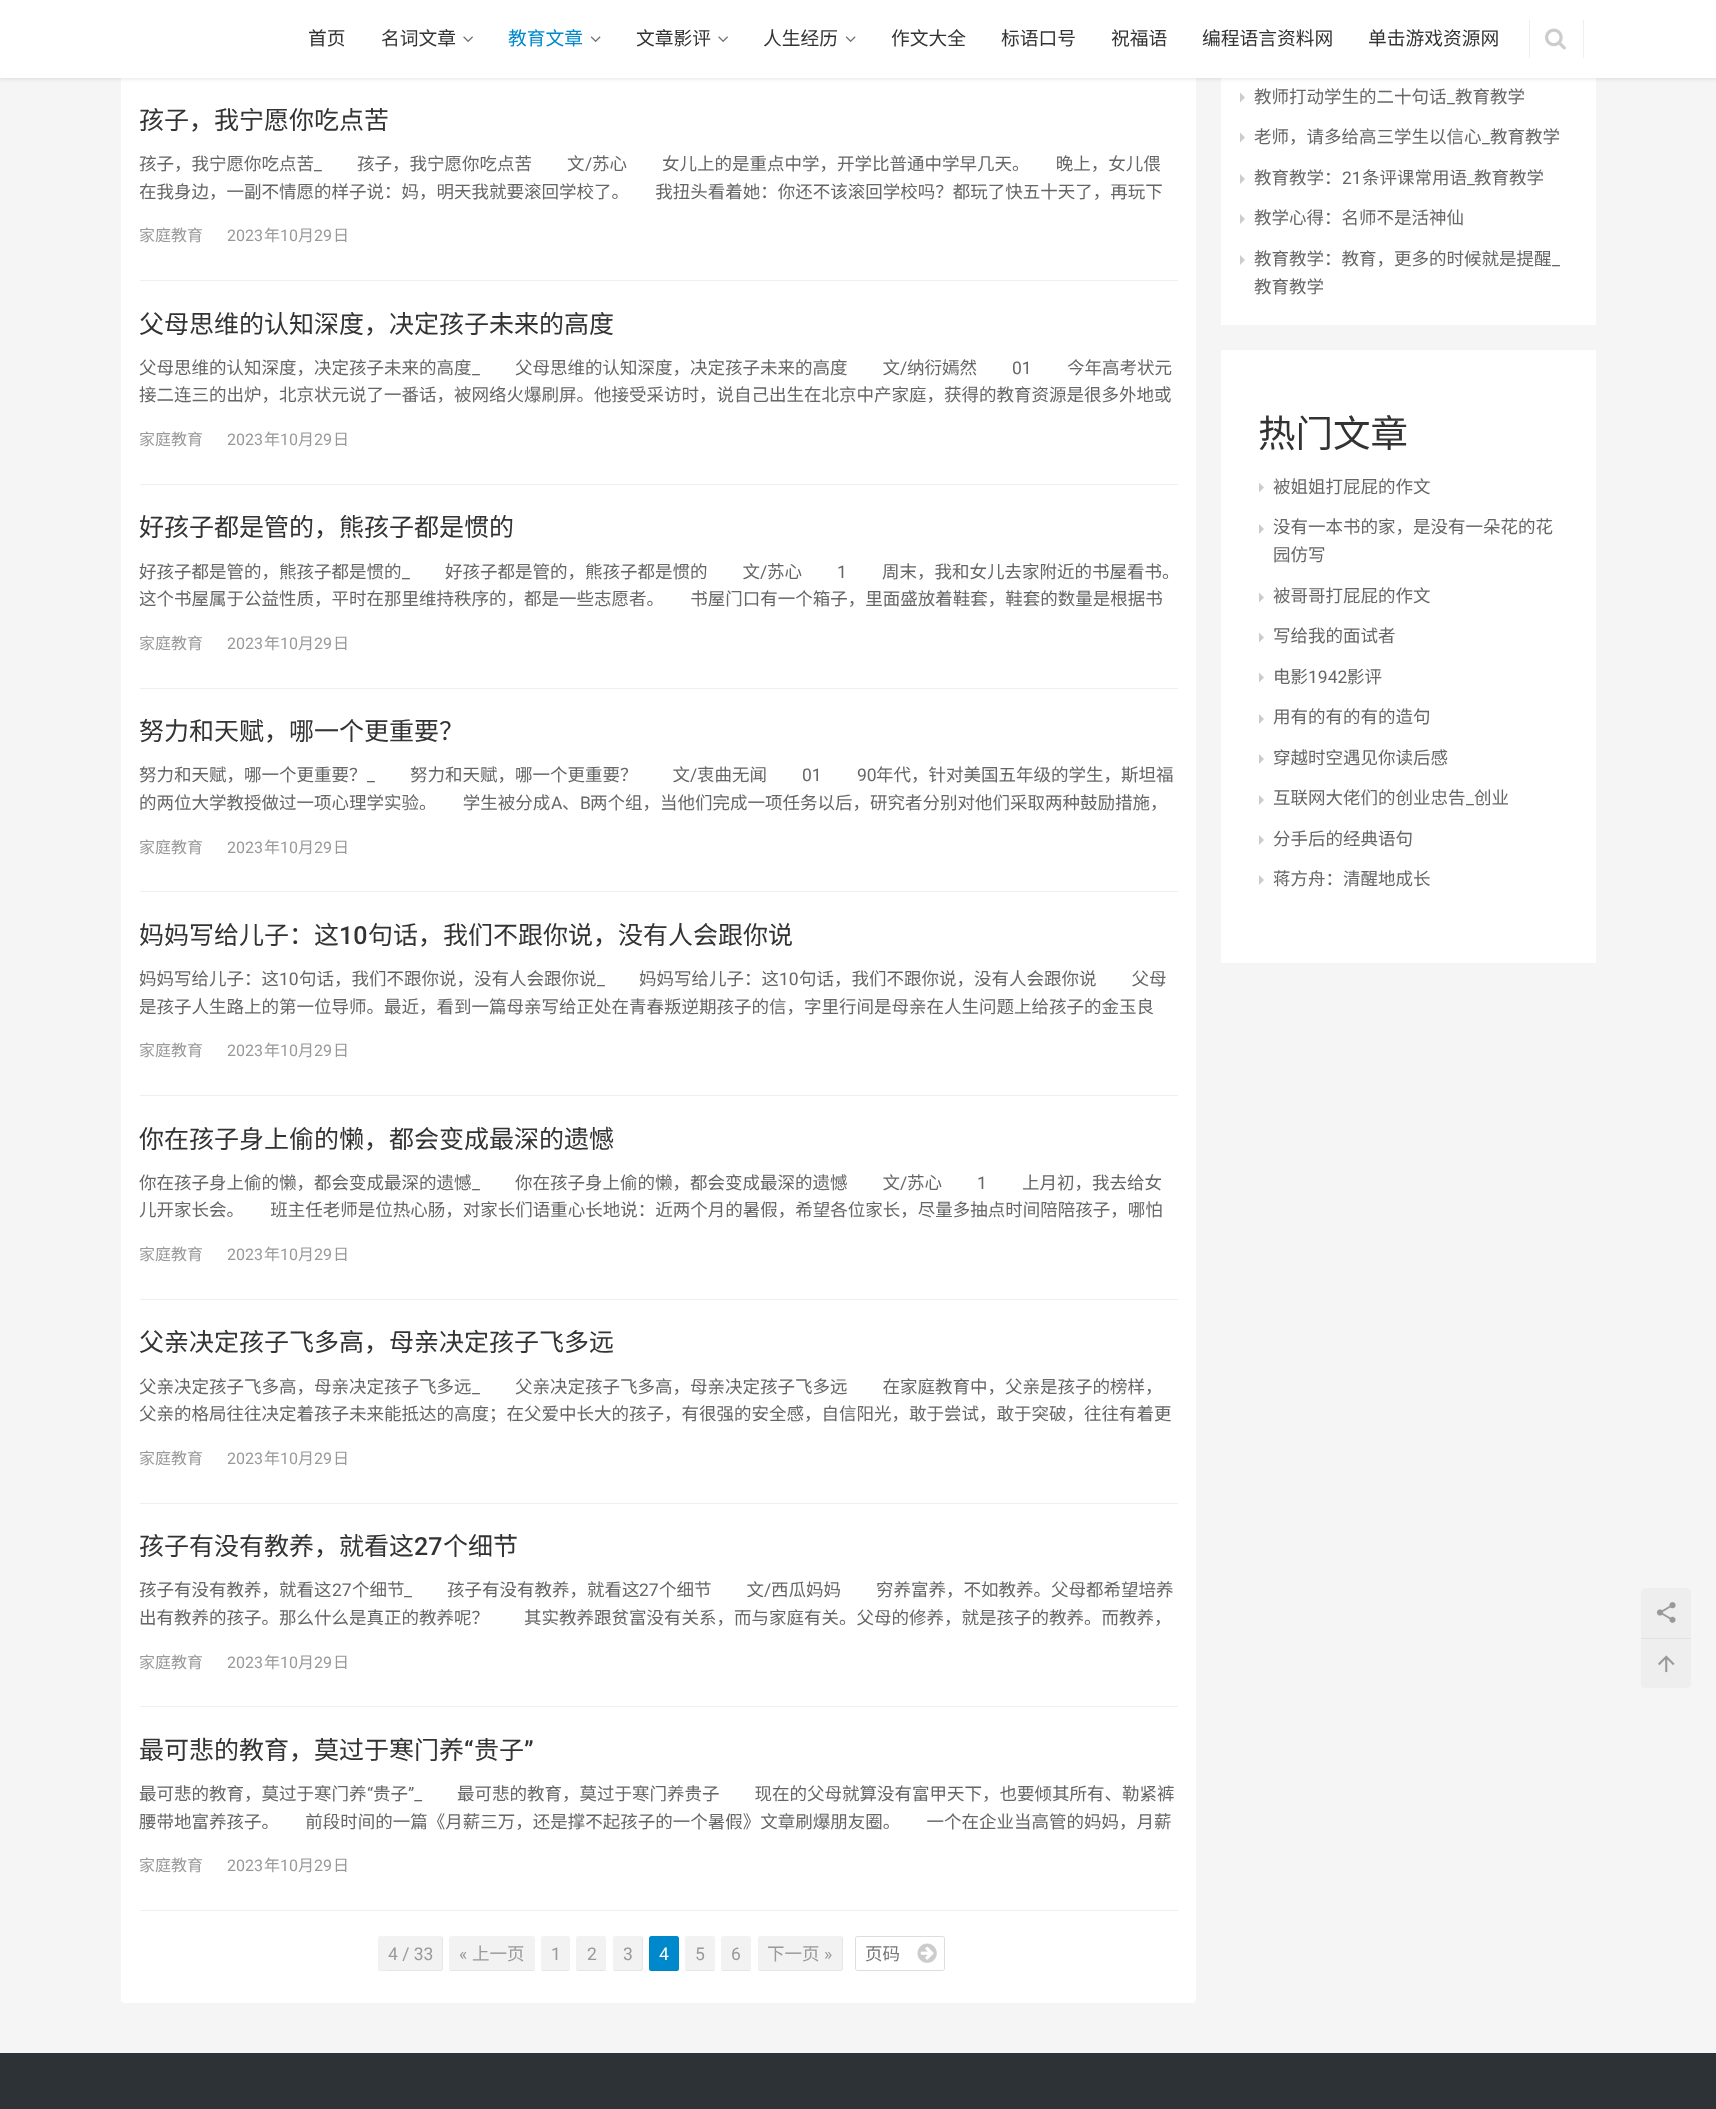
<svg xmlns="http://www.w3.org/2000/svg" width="1716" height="2109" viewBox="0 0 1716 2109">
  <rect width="100%" height="100%" fill="#f5f5f5"/>
  <rect x="121" y="-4" width="1075" height="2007" rx="4" fill="#fff"/>
  <path d="M1221 78h375v247H1221z" fill="#fff"/>
  <path d="M-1 -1h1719v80H-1z" fill="#0000001a" filter="blur(2px)"/>
  <path d="M0 0h1716v78H0z" fill="#fff"/>
  <image x="463" y="36" width="10" height="6" href="img/1.png"/>
  <image x="590" y="36" width="11" height="6" href="img/2.png"/>
  <image x="718" y="36" width="10" height="6" href="img/1.png"/>
  <image x="845" y="36" width="11" height="6" href="img/2.png"/>
  <path d="M1583 20h1v38H1583z" fill="#efefef"/>
  <path d="M1529 20h1v38H1529z" fill="#efefef"/>
  <image x="1545" y="28" width="21" height="22" href="img/3.png"/>
  <path d="M140 280h1038v1H140z" fill="#efefef"/>
  <path d="M140 484h1038v1H140z" fill="#efefef"/>
  <path d="M140 688h1038v1H140z" fill="#efefef"/>
  <path d="M140 891h1038v1H140z" fill="#efefef"/>
  <path d="M140 1095h1038v1H140z" fill="#efefef"/>
  <path d="M140 1299h1038v1H140z" fill="#efefef"/>
  <path d="M140 1503h1038v1H140z" fill="#efefef"/>
  <path d="M140 1706h1038v1H140z" fill="#efefef"/>
  <path d="M140 1910h1038v1H140z" fill="#efefef"/>
  <rect x="378" y="1936" width="65" height="35" rx="2.5" fill="#f2f2f2"/>
  <path d="M378 1968C378 1970 379 1971 380 1971H440C442 1971 443 1970 443 1968V1938C443 1938 442 1937 442 1936V1958C442 1972 445 1970 430 1970H390C386 1970 378 1972 378 1968Z" fill="#0000000d"/>
  <rect x="449" y="1936" width="86" height="35" rx="2.5" fill="#f2f2f2"/>
  <path d="M449 1968C449 1970 450 1971 452 1971H533C534 1971 535 1969 535 1968C535 1969 534 1970 532 1970H451C450 1970 449 1969 449 1968Z" fill="#0000000d"/>
  <rect x="541" y="1936" width="29" height="35" rx="2.5" fill="#f2f2f2"/>
  <path d="M541 1968C541 1972 544.5 1971 547.5 1971H563.5C566.5 1971 570 1972 570 1968C570 1969 569 1970 568 1970H544C542 1970 541 1969 541 1968Z" fill="#0000000d"/>
  <rect x="576" y="1936" width="30" height="35" rx="2.5" fill="#f2f2f2"/>
  <path d="M576 1968C576 1972 580 1971 582.5 1971H599.5C602 1971 606 1972 606 1968C606 1969 605 1970 604 1970H579C577 1970 576 1969 576 1968Z" fill="#0000000d"/>
  <rect x="613" y="1936" width="30" height="35" rx="2.5" fill="#f2f2f2"/>
  <path d="M613 1969.5C613.5 1970.5 614.5 1971 615.5 1971H640.5C642 1971 643 1970 643 1968.5V1938.5C643 1937.5 642.5 1936.5 641.5 1936.5L642 1938V1968C642 1969 641 1970 640 1970H615Z" fill="#0000000d"/>
  <rect x="649" y="1936" width="30" height="35" rx="2.5" fill="#08c"/>
  <path d="M649 1968C649 1972 653 1971 655.5 1971H672.5C675 1971 679 1972 679 1968C679 1969 678 1970 676 1970H651C650 1970 649 1969 649 1968Z" fill="#0000000d"/>
  <rect x="685" y="1936" width="30" height="35" rx="2.5" fill="#f2f2f2"/>
  <path d="M685 1968C685 1972 689 1971 691.5 1971H708.5C711 1971 715 1972 715 1968C715 1969 714 1970 712 1970H688C686 1970 685 1969 685 1968Z" fill="#0000000d"/>
  <rect x="721" y="1936" width="30" height="35" rx="2.5" fill="#f2f2f2"/>
  <path d="M721 1968C721 1972 725 1971 727.5 1971H744.5C747 1971 751 1972 751 1968C751 1969 750 1970 749 1970H724C722 1970 721 1969 721 1968Z" fill="#0000000d"/>
  <rect x="758" y="1936" width="85" height="35" rx="2.5" fill="#f2f2f2"/>
  <path d="M758 1968C758 1970 759 1971 760 1971H840C842 1971 843 1970 843 1968V1938C843 1938 842 1937 842 1936V1963C842 1964 843 1970 840 1970H760L758 1969Z" fill="#0000000d"/>
  <rect x="855.5" y="1936.5" width="89" height="34" rx="2" fill="none" stroke="#ddd"/>
  <image x="917" y="1943" width="20" height="20" href="img/4.png"/>
  <path d="M1240 102.5V92.5L1245 97.5Z" fill="#ccc"/>
  <path d="M1240 142.5V132.5L1245 137.5Z" fill="#ccc"/>
  <path d="M1240 184V174L1245 179Z" fill="#ccc"/>
  <path d="M1240 224V214L1245 219Z" fill="#ccc"/>
  <path d="M1240 265V255L1245 260Z" fill="#ccc"/>
  <path d="M1221 350h375v613H1221z" fill="#fff"/>
  <path d="M1259 492.5V482.5L1264 487.5Z" fill="#ccc"/>
  <path d="M1259 534V524L1264 529Z" fill="#ccc"/>
  <path d="M1259 602.5V592.5L1264 597.5Z" fill="#ccc"/>
  <path d="M1259 642.5V632.5L1264 637.5Z" fill="#ccc"/>
  <path d="M1259 682.5V672.5L1264 677.5Z" fill="#ccc"/>
  <path d="M1259 724V714L1264 719Z" fill="#ccc"/>
  <path d="M1259 764V754L1264 759Z" fill="#ccc"/>
  <path d="M1259 805V795L1264 800Z" fill="#ccc"/>
  <path d="M1259 845V835L1264 840Z" fill="#ccc"/>
  <path d="M1259 885V875L1264 880Z" fill="#ccc"/>
  <path d="M1645 1588H1687C1689 1588 1691 1590 1691 1592V1638H1641V1592C1641 1590 1643 1588 1645 1588Z" fill="#eee"/>
  <image x="1656" y="1602" width="20" height="21" href="img/5.png"/>
  <path d="M1641 1638H1691V1684C1691 1686 1689 1688 1687 1688H1645C1643 1688 1641 1686 1641 1684Z" fill="#eee"/>
  <path d="M1641 1638h50v1H1641z" fill="#e2e2e2"/>
  <image x="1658" y="1655" width="17" height="18" href="img/6.png"/>
  <path d="M0 2053h1716v56H0z" fill="#2d3237"/>
  <g font-family="Noto Sans CJK SC" font-size="18.75" fill="#333">
    <text x="308" y="45">首页</text>
    <text x="381" y="45">名词文章</text>
  </g>
  <text x="508" y="45" font-family="Noto Sans CJK SC" font-size="18.75" fill="#08c">教育文章</text>
  <g font-family="Noto Sans CJK SC" font-size="18.75" fill="#333">
    <text x="636" y="45">文章影评</text>
    <text x="763" y="45">人生经历</text>
    <text x="891" y="45">作文大全</text>
    <text x="1001" y="45">标语口号</text>
    <text x="1111" y="45">祝福语</text>
    <text x="1202" y="45">编程语言资料网</text>
    <text x="1368" y="45">单击游戏资源网</text>
  </g>
  <text x="139" y="129" font-family="Noto Sans CJK SC" font-size="25" fill="#333">孩子，我宁愿你吃点苦</text>
  <text x="139" y="170" font-family="Noto Sans CJK SC" font-size="17.5" fill="#666">孩子，我宁愿你吃点苦</text>
  <text x="314" y="170" font-family="Roboto" font-size="17.5" fill="#666">_</text>
  <text x="357" y="170" font-family="Noto Sans CJK SC" font-size="17.5" fill="#666">孩子，我宁愿你吃点苦　　文</text>
  <text x="585" y="170" font-family="Roboto" font-size="17.5" fill="#666">/</text>
  <g font-family="Noto Sans CJK SC" font-size="17.5" fill="#666">
    <text x="592" y="170">苏心　　女儿上的是重点中学，开学比普通中学早几天。　　晚上，女儿偎</text>
    <text x="139" y="198">在我身边，一副不情愿的样子说：妈，明天我就要滚回学校了。　　我扭头看着她：你还不该滚回学校吗？都玩了快五十天了，再玩下</text>
  </g>
  <text x="139" y="241" font-family="Noto Sans CJK SC" font-size="16" fill="#999">家庭教育</text>
  <text x="227" y="241" font-family="Roboto" font-size="16" fill="#999">2023</text>
  <text x="264" y="241" font-family="Noto Sans CJK SC" font-size="16" fill="#999">年</text>
  <text x="280" y="241" font-family="Roboto" font-size="16" fill="#999">10</text>
  <text x="298" y="241" font-family="Noto Sans CJK SC" font-size="16" fill="#999">月</text>
  <text x="314" y="241" font-family="Roboto" font-size="16" fill="#999">29</text>
  <text x="333" y="241" font-family="Noto Sans CJK SC" font-size="16" fill="#999">日</text>
  <text x="139" y="333" font-family="Noto Sans CJK SC" font-size="25" fill="#333">父母思维的认知深度，决定孩子未来的高度</text>
  <text x="139" y="374" font-family="Noto Sans CJK SC" font-size="17.5" fill="#666">父母思维的认知深度，决定孩子未来的高度</text>
  <text x="472" y="374" font-family="Roboto" font-size="17.5" fill="#666">_</text>
  <text x="515" y="374" font-family="Noto Sans CJK SC" font-size="17.5" fill="#666">父母思维的认知深度，决定孩子未来的高度　　文</text>
  <text x="900" y="374" font-family="Roboto" font-size="17.5" fill="#666">/</text>
  <text x="907" y="374" font-family="Noto Sans CJK SC" font-size="17.5" fill="#666">纳衍嫣然</text>
  <text x="1012" y="374" font-family="Roboto" font-size="17.5" fill="#666">01</text>
  <g font-family="Noto Sans CJK SC" font-size="17.5" fill="#666">
    <text x="1067" y="374">今年高考状元</text>
    <text x="139" y="401">接二连三的出炉，北京状元说了一番话，被网络火爆刷屏。他接受采访时，说自己出生在北京中产家庭，获得的教育资源是很多外地或</text>
  </g>
  <text x="139" y="445" font-family="Noto Sans CJK SC" font-size="16" fill="#999">家庭教育</text>
  <text x="227" y="445" font-family="Roboto" font-size="16" fill="#999">2023</text>
  <text x="264" y="445" font-family="Noto Sans CJK SC" font-size="16" fill="#999">年</text>
  <text x="280" y="445" font-family="Roboto" font-size="16" fill="#999">10</text>
  <text x="298" y="445" font-family="Noto Sans CJK SC" font-size="16" fill="#999">月</text>
  <text x="314" y="445" font-family="Roboto" font-size="16" fill="#999">29</text>
  <text x="333" y="445" font-family="Noto Sans CJK SC" font-size="16" fill="#999">日</text>
  <text x="139" y="536" font-family="Noto Sans CJK SC" font-size="25" fill="#333">好孩子都是管的，熊孩子都是惯的</text>
  <g font-family="Noto Sans CJK SC" font-size="17.5" fill="#666">
    <text x="139" y="578">好孩子都是管的，熊孩子都是惯的</text>
    <text x="445" y="578">好孩子都是管的，熊孩子都是惯的　　文</text>
  </g>
  <text x="760" y="578" font-family="Roboto" font-size="17.5" fill="#666">/</text>
  <text x="767" y="578" font-family="Noto Sans CJK SC" font-size="17.5" fill="#666">苏心</text>
  <text x="837" y="578" font-family="Roboto" font-size="17.5" fill="#666">1</text>
  <text x="882" y="578" font-family="Noto Sans CJK SC" font-size="17.5" fill="#666">周末，我和女儿去家附近的书屋看书。</text>
  <text x="402" y="578" font-family="Roboto" font-size="17.5" fill="#666">_</text>
  <text x="139" y="605" font-family="Noto Sans CJK SC" font-size="17.5" fill="#666">这个书屋属于公益性质，平时在那里维持秩序的，都是一些志愿者。　　书屋门口有一个箱子，里面盛放着鞋套，鞋套的数量是根据书</text>
  <text x="139" y="649" font-family="Noto Sans CJK SC" font-size="16" fill="#999">家庭教育</text>
  <text x="227" y="649" font-family="Roboto" font-size="16" fill="#999">2023</text>
  <text x="264" y="649" font-family="Noto Sans CJK SC" font-size="16" fill="#999">年</text>
  <text x="280" y="649" font-family="Roboto" font-size="16" fill="#999">10</text>
  <text x="298" y="649" font-family="Noto Sans CJK SC" font-size="16" fill="#999">月</text>
  <text x="314" y="649" font-family="Roboto" font-size="16" fill="#999">29</text>
  <text x="333" y="649" font-family="Noto Sans CJK SC" font-size="16" fill="#999">日</text>
  <text x="139" y="740" font-family="Noto Sans CJK SC" font-size="25" fill="#333">努力和天赋，哪一个更重要？</text>
  <text x="139" y="781" font-family="Noto Sans CJK SC" font-size="17.5" fill="#666">努力和天赋，哪一个更重要？</text>
  <text x="367" y="781" font-family="Roboto" font-size="17.5" fill="#666">_</text>
  <text x="410" y="781" font-family="Noto Sans CJK SC" font-size="17.5" fill="#666">努力和天赋，哪一个更重要？　　文</text>
  <text x="690" y="781" font-family="Roboto" font-size="17.5" fill="#666">/</text>
  <text x="697" y="781" font-family="Noto Sans CJK SC" font-size="17.5" fill="#666">衷曲无闻</text>
  <g font-family="Roboto" font-size="17.5" fill="#666">
    <text x="802" y="781">01</text>
    <text x="857" y="781">90</text>
  </g>
  <g font-family="Noto Sans CJK SC" font-size="17.5" fill="#666">
    <text x="876" y="781">年代，针对美国五年级的学生，斯坦福</text>
    <text x="139" y="809">的两位大学教授做过一项心理学实验。　　学生被分成</text>
  </g>
  <text x="551" y="809" font-family="Roboto" font-size="17.5" fill="#666">A</text>
  <text x="562" y="809" font-family="Noto Sans CJK SC" font-size="17.5" fill="#666">、</text>
  <text x="580" y="809" font-family="Roboto" font-size="17.5" fill="#666">B</text>
  <text x="590" y="809" font-family="Noto Sans CJK SC" font-size="17.5" fill="#666">两个组，当他们完成一项任务以后，研究者分别对他们采取两种鼓励措施，</text>
  <text x="139" y="853" font-family="Noto Sans CJK SC" font-size="16" fill="#999">家庭教育</text>
  <text x="227" y="853" font-family="Roboto" font-size="16" fill="#999">2023</text>
  <text x="264" y="853" font-family="Noto Sans CJK SC" font-size="16" fill="#999">年</text>
  <text x="280" y="853" font-family="Roboto" font-size="16" fill="#999">10</text>
  <text x="298" y="853" font-family="Noto Sans CJK SC" font-size="16" fill="#999">月</text>
  <text x="314" y="853" font-family="Roboto" font-size="16" fill="#999">29</text>
  <text x="333" y="853" font-family="Noto Sans CJK SC" font-size="16" fill="#999">日</text>
  <text x="139" y="944" font-family="Noto Sans CJK SC" font-size="25" fill="#333">妈妈写给儿子：这</text>
  <text x="339" y="944" font-family="Roboto" font-size="25" font-weight="500" fill="#333">10</text>
  <text x="368" y="944" font-family="Noto Sans CJK SC" font-size="25" fill="#333">句话，我们不跟你说，没有人会跟你说</text>
  <text x="139" y="985" font-family="Noto Sans CJK SC" font-size="17.5" fill="#666">妈妈写给儿子：这</text>
  <text x="279" y="985" font-family="Roboto" font-size="17.5" fill="#666">10</text>
  <text x="299" y="985" font-family="Noto Sans CJK SC" font-size="17.5" fill="#666">句话，我们不跟你说，没有人会跟你说</text>
  <text x="597" y="985" font-family="Roboto" font-size="17.5" fill="#666">_</text>
  <text x="639" y="985" font-family="Noto Sans CJK SC" font-size="17.5" fill="#666">妈妈写给儿子：这</text>
  <text x="779" y="985" font-family="Roboto" font-size="17.5" fill="#666">10</text>
  <g font-family="Noto Sans CJK SC" font-size="17.5" fill="#666">
    <text x="799" y="985">句话，我们不跟你说，没有人会跟你说　　父母</text>
    <text x="139" y="1013">是孩子人生路上的第一位导师。最近，看到一篇母亲写给正处在青春叛逆期孩子的信，字里行间是母亲在人生问题上给孩子的金玉良</text>
  </g>
  <text x="139" y="1056" font-family="Noto Sans CJK SC" font-size="16" fill="#999">家庭教育</text>
  <text x="227" y="1056" font-family="Roboto" font-size="16" fill="#999">2023</text>
  <text x="264" y="1056" font-family="Noto Sans CJK SC" font-size="16" fill="#999">年</text>
  <text x="280" y="1056" font-family="Roboto" font-size="16" fill="#999">10</text>
  <text x="298" y="1056" font-family="Noto Sans CJK SC" font-size="16" fill="#999">月</text>
  <text x="314" y="1056" font-family="Roboto" font-size="16" fill="#999">29</text>
  <text x="333" y="1056" font-family="Noto Sans CJK SC" font-size="16" fill="#999">日</text>
  <text x="139" y="1148" font-family="Noto Sans CJK SC" font-size="25" fill="#333">你在孩子身上偷的懒，都会变成最深的遗憾</text>
  <g font-family="Noto Sans CJK SC" font-size="17.5" fill="#666">
    <text x="139" y="1189">你在孩子身上偷的懒，都会变成最深的遗憾</text>
    <text x="515" y="1189">你在孩子身上偷的懒，都会变成最深的遗憾　　文</text>
  </g>
  <text x="900" y="1189" font-family="Roboto" font-size="17.5" fill="#666">/</text>
  <text x="907" y="1189" font-family="Noto Sans CJK SC" font-size="17.5" fill="#666">苏心</text>
  <text x="977" y="1189" font-family="Roboto" font-size="17.5" fill="#666">1</text>
  <text x="1022" y="1189" font-family="Noto Sans CJK SC" font-size="17.5" fill="#666">上月初，我去给女</text>
  <text x="472" y="1189" font-family="Roboto" font-size="17.5" fill="#666">_</text>
  <text x="139" y="1216" font-family="Noto Sans CJK SC" font-size="17.5" fill="#666">儿开家长会。　　班主任老师是位热心肠，对家长们语重心长地说：近两个月的暑假，希望各位家长，尽量多抽点时间陪陪孩子，哪怕</text>
  <text x="139" y="1260" font-family="Noto Sans CJK SC" font-size="16" fill="#999">家庭教育</text>
  <text x="227" y="1260" font-family="Roboto" font-size="16" fill="#999">2023</text>
  <text x="264" y="1260" font-family="Noto Sans CJK SC" font-size="16" fill="#999">年</text>
  <text x="280" y="1260" font-family="Roboto" font-size="16" fill="#999">10</text>
  <text x="298" y="1260" font-family="Noto Sans CJK SC" font-size="16" fill="#999">月</text>
  <text x="314" y="1260" font-family="Roboto" font-size="16" fill="#999">29</text>
  <text x="333" y="1260" font-family="Noto Sans CJK SC" font-size="16" fill="#999">日</text>
  <text x="139" y="1351" font-family="Noto Sans CJK SC" font-size="25" fill="#333">父亲决定孩子飞多高，母亲决定孩子飞多远</text>
  <text x="139" y="1393" font-family="Noto Sans CJK SC" font-size="17.5" fill="#666">父亲决定孩子飞多高，母亲决定孩子飞多远</text>
  <text x="472" y="1393" font-family="Roboto" font-size="17.5" fill="#666">_</text>
  <g font-family="Noto Sans CJK SC" font-size="17.5" fill="#666">
    <text x="515" y="1393">父亲决定孩子飞多高，母亲决定孩子飞多远　　在家庭教育中，父亲是孩子的榜样，</text>
    <text x="139" y="1420">父亲的格局往往决定着孩子未来能抵达的高度；在父爱中长大的孩子，有很强的安全感，自信阳光，敢于尝试，敢于突破，往往有着更</text>
  </g>
  <text x="139" y="1464" font-family="Noto Sans CJK SC" font-size="16" fill="#999">家庭教育</text>
  <text x="227" y="1464" font-family="Roboto" font-size="16" fill="#999">2023</text>
  <text x="264" y="1464" font-family="Noto Sans CJK SC" font-size="16" fill="#999">年</text>
  <text x="280" y="1464" font-family="Roboto" font-size="16" fill="#999">10</text>
  <text x="298" y="1464" font-family="Noto Sans CJK SC" font-size="16" fill="#999">月</text>
  <text x="314" y="1464" font-family="Roboto" font-size="16" fill="#999">29</text>
  <text x="333" y="1464" font-family="Noto Sans CJK SC" font-size="16" fill="#999">日</text>
  <text x="139" y="1555" font-family="Noto Sans CJK SC" font-size="25" fill="#333">孩子有没有教养，就看这</text>
  <text x="414" y="1555" font-family="Roboto" font-size="25" font-weight="500" fill="#333">27</text>
  <text x="443" y="1555" font-family="Noto Sans CJK SC" font-size="25" fill="#333">个细节</text>
  <text x="139" y="1596" font-family="Noto Sans CJK SC" font-size="17.5" fill="#666">孩子有没有教养，就看这</text>
  <text x="332" y="1596" font-family="Roboto" font-size="17.5" fill="#666">27</text>
  <text x="352" y="1596" font-family="Noto Sans CJK SC" font-size="17.5" fill="#666">个细节</text>
  <text x="404" y="1596" font-family="Roboto" font-size="17.5" fill="#666">_</text>
  <text x="447" y="1596" font-family="Noto Sans CJK SC" font-size="17.5" fill="#666">孩子有没有教养，就看这</text>
  <text x="639" y="1596" font-family="Roboto" font-size="17.5" fill="#666">27</text>
  <text x="659" y="1596" font-family="Noto Sans CJK SC" font-size="17.5" fill="#666">个细节　　文</text>
  <text x="764" y="1596" font-family="Roboto" font-size="17.5" fill="#666">/</text>
  <g font-family="Noto Sans CJK SC" font-size="17.5" fill="#666">
    <text x="771" y="1596">西瓜妈妈　　穷养富养，不如教养。父母都希望培养</text>
    <text x="139" y="1624">出有教养的孩子。那么什么是真正的教养呢？　　其实教养跟贫富没有关系，而与家庭有关。父母的修养，就是孩子的教养。而教养，</text>
  </g>
  <text x="139" y="1668" font-family="Noto Sans CJK SC" font-size="16" fill="#999">家庭教育</text>
  <text x="227" y="1668" font-family="Roboto" font-size="16" fill="#999">2023</text>
  <text x="264" y="1668" font-family="Noto Sans CJK SC" font-size="16" fill="#999">年</text>
  <text x="280" y="1668" font-family="Roboto" font-size="16" fill="#999">10</text>
  <text x="298" y="1668" font-family="Noto Sans CJK SC" font-size="16" fill="#999">月</text>
  <text x="314" y="1668" font-family="Roboto" font-size="16" fill="#999">29</text>
  <text x="333" y="1668" font-family="Noto Sans CJK SC" font-size="16" fill="#999">日</text>
  <text x="139" y="1759" font-family="Noto Sans CJK SC" font-size="25" fill="#333">最可悲的教育，莫过于寒门养</text>
  <text x="464" y="1759" font-family="Roboto" font-size="25" font-weight="500" fill="#333">“</text>
  <text x="474" y="1759" font-family="Noto Sans CJK SC" font-size="25" fill="#333">贵子</text>
  <text x="524" y="1759" font-family="Roboto" font-size="25" font-weight="500" fill="#333">”</text>
  <text x="139" y="1800" font-family="Noto Sans CJK SC" font-size="17.5" fill="#666">最可悲的教育，莫过于寒门养</text>
  <text x="367" y="1800" font-family="Roboto" font-size="17.5" fill="#666">“</text>
  <text x="373" y="1800" font-family="Noto Sans CJK SC" font-size="17.5" fill="#666">贵子</text>
  <text x="408" y="1800" font-family="Roboto" font-size="17.5" fill="#666">”_</text>
  <g font-family="Noto Sans CJK SC" font-size="17.5" fill="#666">
    <text x="457" y="1800">最可悲的教育，莫过于寒门养贵子　　现在的父母就算没有富甲天下，也要倾其所有、勒紧裤</text>
    <text x="139" y="1828">腰带地富养孩子。　　前段时间的一篇《月薪三万，还是撑不起孩子的一个暑假》文章刷爆朋友圈。　　一个在企业当高管的妈妈，月薪</text>
  </g>
  <text x="139" y="1871" font-family="Noto Sans CJK SC" font-size="16" fill="#999">家庭教育</text>
  <text x="227" y="1871" font-family="Roboto" font-size="16" fill="#999">2023</text>
  <text x="264" y="1871" font-family="Noto Sans CJK SC" font-size="16" fill="#999">年</text>
  <text x="280" y="1871" font-family="Roboto" font-size="16" fill="#999">10</text>
  <text x="298" y="1871" font-family="Noto Sans CJK SC" font-size="16" fill="#999">月</text>
  <text x="314" y="1871" font-family="Roboto" font-size="16" fill="#999">29</text>
  <text x="333" y="1871" font-family="Noto Sans CJK SC" font-size="16" fill="#999">日</text>
  <g font-family="Roboto" font-size="17.5" fill="#999">
    <text x="388" y="1960">4 / 33</text>
    <text x="459" y="1960">«</text>
  </g>
  <text x="472" y="1960" font-family="Noto Sans CJK SC" font-size="17.5" fill="#999">上一页</text>
  <g font-family="Roboto" font-size="17.5" fill="#999">
    <text x="551" y="1960">1</text>
    <text x="587" y="1960">2</text>
    <text x="623" y="1960">3</text>
  </g>
  <text x="659" y="1960" font-family="Roboto" font-size="17.5" fill="#fff">4</text>
  <g font-family="Roboto" font-size="17.5" fill="#999">
    <text x="695" y="1960">5</text>
    <text x="731" y="1960">6</text>
  </g>
  <text x="767" y="1960" font-family="Noto Sans CJK SC" font-size="17.5" fill="#999">下一页</text>
  <text x="824" y="1960" font-family="Roboto" font-size="17.5" fill="#999">»</text>
  <text x="865" y="1960" font-family="Noto Sans CJK SC" font-size="17.5" fill="#757575">页码</text>
  <g font-family="Noto Sans CJK SC" font-size="17.5" fill="#666">
    <text x="1254" y="103">教师打动学生的二十句话</text>
    <text x="1455" y="103">教育教学</text>
  </g>
  <text x="1447" y="103" font-family="Roboto" font-size="17.5" fill="#666">_</text>
  <g font-family="Noto Sans CJK SC" font-size="17.5" fill="#666">
    <text x="1254" y="143">老师，请多给高三学生以信心</text>
    <text x="1490" y="143">教育教学</text>
  </g>
  <text x="1482" y="143" font-family="Roboto" font-size="17.5" fill="#666">_</text>
  <text x="1254" y="184" font-family="Noto Sans CJK SC" font-size="17.5" fill="#666">教育教学：</text>
  <text x="1342" y="184" font-family="Roboto" font-size="17.5" fill="#666">21</text>
  <g font-family="Noto Sans CJK SC" font-size="17.5" fill="#666">
    <text x="1362" y="184">条评课常用语</text>
    <text x="1474" y="184">教育教学</text>
  </g>
  <text x="1467" y="184" font-family="Roboto" font-size="17.5" fill="#666">_</text>
  <g font-family="Noto Sans CJK SC" font-size="17.5" fill="#666">
    <text x="1254" y="224">教学心得：名师不是活神仙</text>
    <text x="1254" y="265">教育教学：教育，更多的时候就是提醒</text>
  </g>
  <text x="1552" y="265" font-family="Roboto" font-size="17.5" fill="#666">_</text>
  <text x="1254" y="293" font-family="Noto Sans CJK SC" font-size="17.5" fill="#666">教育教学</text>
  <text x="1258" y="447" font-family="Noto Sans CJK SC" font-size="37.5" fill="#333">热门文章</text>
  <g font-family="Noto Sans CJK SC" font-size="17.5" fill="#666">
    <text x="1273" y="493">被姐姐打屁屁的作文</text>
    <text x="1273" y="533">没有一本书的家，是没有一朵花的花</text>
    <text x="1273" y="561">园仿写</text>
    <text x="1273" y="602">被哥哥打屁屁的作文</text>
    <text x="1273" y="642">写给我的面试者</text>
    <text x="1273" y="683">电影</text>
  </g>
  <text x="1308" y="683" font-family="Roboto" font-size="17.5" fill="#666">1942</text>
  <g font-family="Noto Sans CJK SC" font-size="17.5" fill="#666">
    <text x="1347" y="683">影评</text>
    <text x="1273" y="723">用有的有的有的造句</text>
    <text x="1273" y="764">穿越时空遇见你读后感</text>
    <text x="1273" y="804">互联网大佬们的创业忠告</text>
  </g>
  <text x="1466" y="804" font-family="Roboto" font-size="17.5" fill="#666">_</text>
  <g font-family="Noto Sans CJK SC" font-size="17.5" fill="#666">
    <text x="1474" y="804">创业</text>
    <text x="1273" y="845">分手后的经典语句</text>
    <text x="1273" y="885">蒋方舟：清醒地成长</text>
  </g>
</svg>
